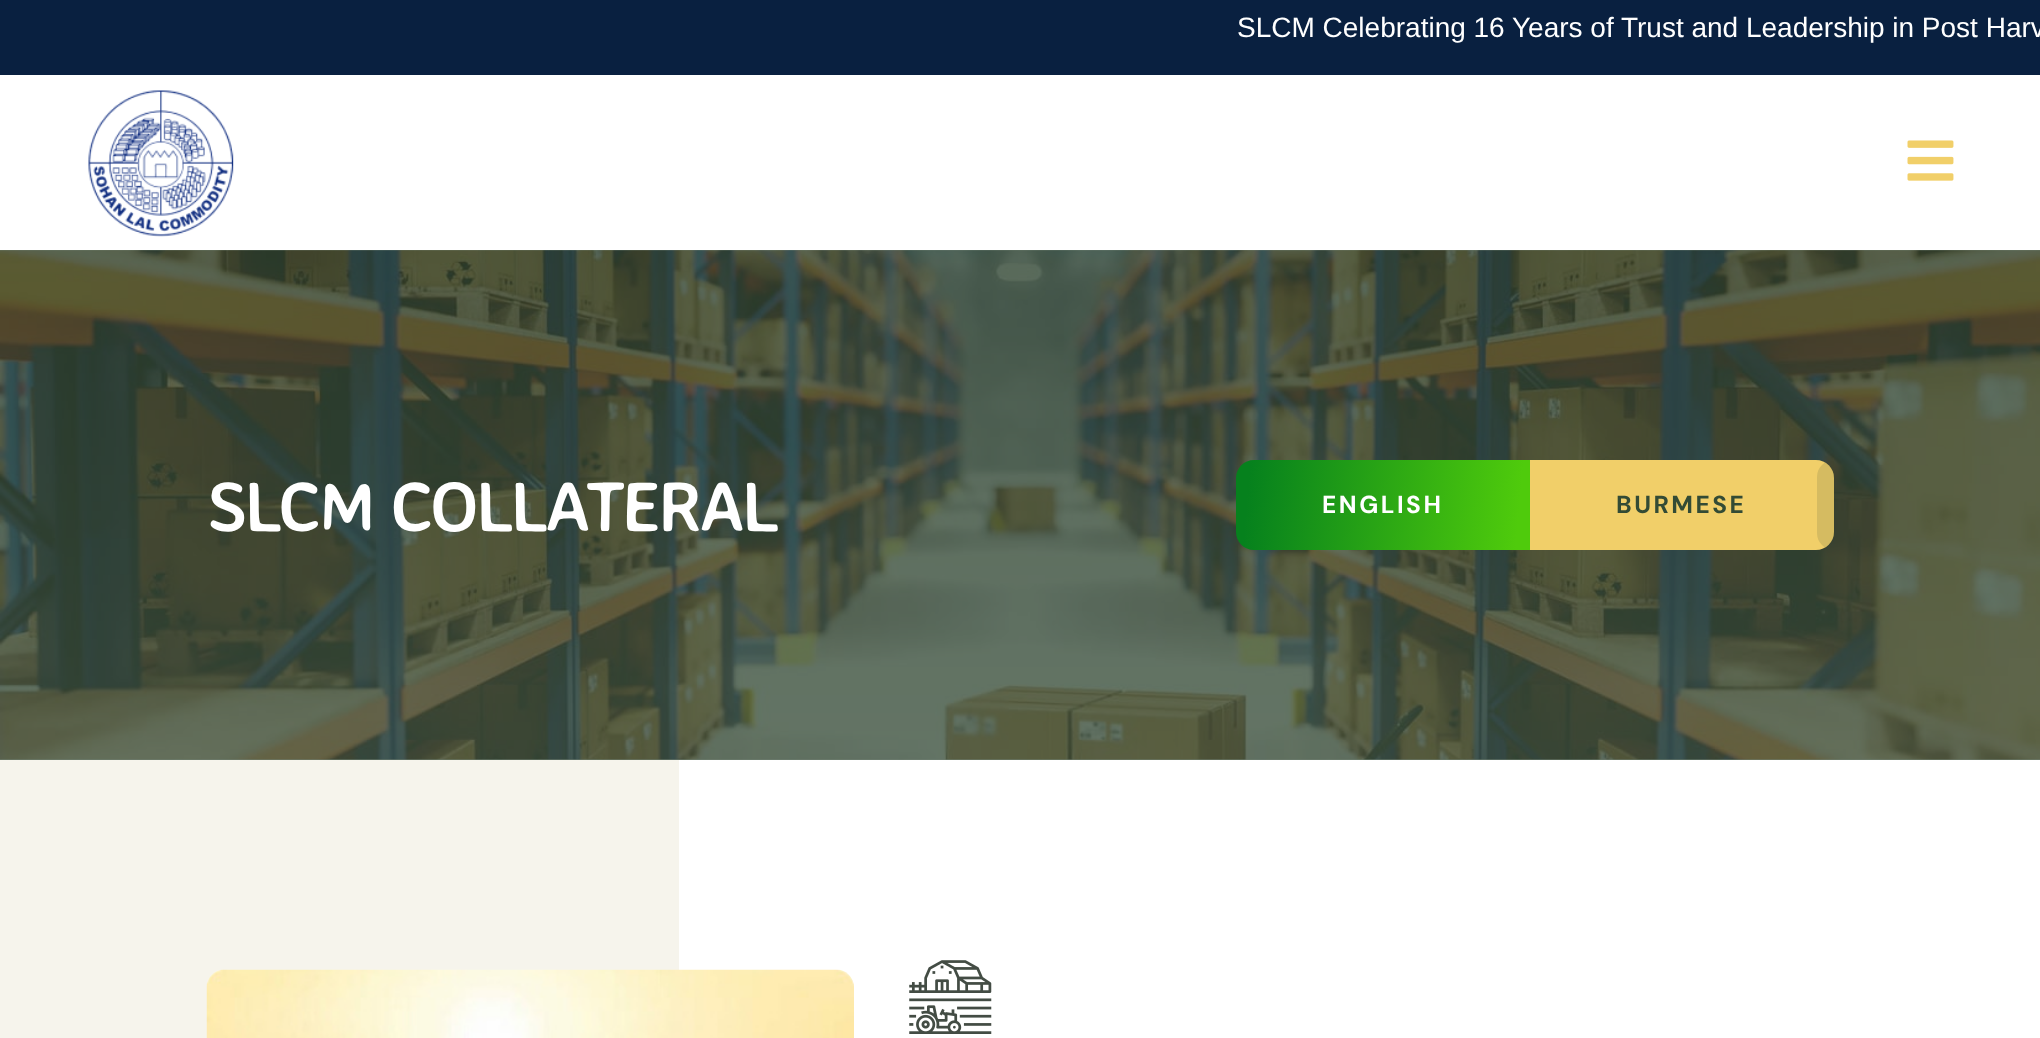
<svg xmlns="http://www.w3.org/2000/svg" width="2040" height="1038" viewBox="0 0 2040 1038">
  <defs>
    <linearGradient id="g1" gradientUnits="userSpaceOnUse" x1="1157" y1="485" x2="1609" y2="525"><stop offset="0.2" stop-color="#06811d"/><stop offset="0.8" stop-color="#4fcb0c"/></linearGradient>
    <clipPath id="clip1"><path d="M1530 460H1816C1826 460 1834 468 1834 478V532C1834 542 1826 550 1816 550H1530Z"/></clipPath>
  </defs>
  <rect width="100%" height="100%" fill="#fff"/>
  <path d="M0 250h2040v510H0z" fill="#708172"/>
  <path d="M0 0h2040v75H0z" fill="#092040"/>
  <image x="88" y="90" width="146" height="147" href="img/1.png"/>
  <image x="1907" y="140" width="47" height="41" href="img/2.png"/>
  <image x="0" y="250" width="2040" height="510" href="img/3.png"/>
  <path d="M1254 460H1531V550H1254C1244 550 1236 542 1236 532V478C1236 468 1244 460 1254 460Z" fill="url(#g1)"/>
  <path d="M1530 460H1816C1826 460 1834 468 1834 478V532C1834 542 1826 550 1816 550H1530Z" fill="#f1cf69"/>
  <g clip-path="url(#clip1)">
    <path d="M1834 460V550C1824.5 550 1817 542.5 1817 533V477C1817 467.5 1824.5 460 1834 460Z" fill="#334b3526"/>
  </g>
  <path d="M0 760h679v278H0z" fill="#f6f4ec"/>
  <image x="206" y="969" width="648" height="69" href="img/4.png"/>
  <image x="909" y="960" width="83" height="74" href="img/5.png"/>
  <text x="1237" y="37" font-family="Liberation Sans" font-size="28" fill="#fff">SLCM Celebrating 16 Years of Trust and Leadership in Post Harv</text>
  <text x="207" y="531" font-family="Averia Sans Libre" font-size="70" font-weight="bold" letter-spacing="-2.75" fill="#fff">SLCM COLLATERAL</text>
  <text x="1322" y="513" font-family="DM Sans" font-size="24.5" font-weight="bold" letter-spacing="2.5" fill="#fff">ENGLISH</text>
  <text x="1616" y="513" font-family="DM Sans" font-size="24.5" font-weight="bold" letter-spacing="2.5" fill="#334b35">BURMESE</text>
</svg>
